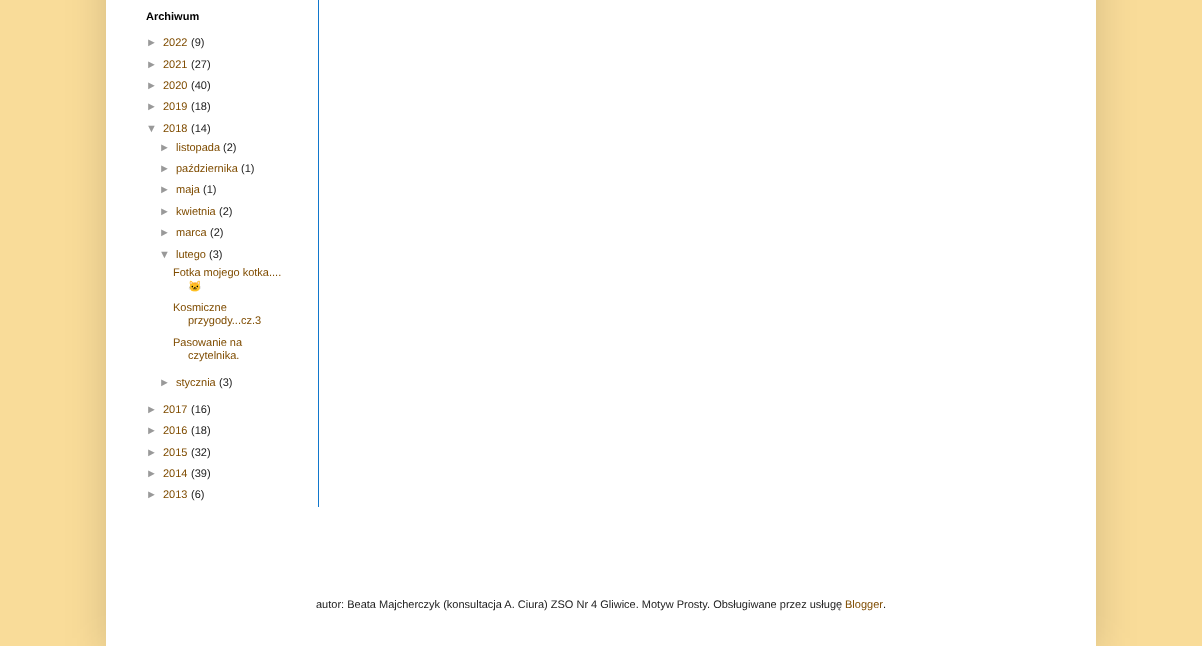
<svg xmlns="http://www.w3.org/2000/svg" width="1202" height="646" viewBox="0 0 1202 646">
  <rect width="100%" height="100%" fill="#f9dc99"/>
  <path d="M106 -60h990v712H106z" fill="#00000026" filter="blur(20px)"/>
  <path d="M106 0h990v646H106z" fill="#fff"/>
  <path d="M318 0h1v507H318z" fill="#17c"/>
  <text x="146" y="20" font-family="Liberation Sans" font-size="11" font-weight="bold" fill="#000">Archiwum</text>
  <text x="146" y="46" font-family="Liberation Sans" font-size="11" fill="#999">►</text>
  <text x="163" y="46" font-family="Liberation Sans" font-size="11" fill="#7f4c00">2022</text>
  <text x="191" y="46" font-family="Liberation Sans" font-size="11" fill="#222">(9)</text>
  <text x="146" y="68" font-family="Liberation Sans" font-size="11" fill="#999">►</text>
  <text x="163" y="68" font-family="Liberation Sans" font-size="11" fill="#7f4c00">2021</text>
  <text x="191" y="68" font-family="Liberation Sans" font-size="11" fill="#222">(27)</text>
  <text x="146" y="89" font-family="Liberation Sans" font-size="11" fill="#999">►</text>
  <text x="163" y="89" font-family="Liberation Sans" font-size="11" fill="#7f4c00">2020</text>
  <text x="191" y="89" font-family="Liberation Sans" font-size="11" fill="#222">(40)</text>
  <text x="146" y="110" font-family="Liberation Sans" font-size="11" fill="#999">►</text>
  <text x="163" y="110" font-family="Liberation Sans" font-size="11" fill="#7f4c00">2019</text>
  <text x="191" y="110" font-family="Liberation Sans" font-size="11" fill="#222">(18)</text>
  <text x="146" y="132" font-family="Liberation Sans" font-size="11" fill="#999">▼</text>
  <text x="163" y="132" font-family="Liberation Sans" font-size="11" fill="#7f4c00">2018</text>
  <text x="191" y="132" font-family="Liberation Sans" font-size="11" fill="#222">(14)</text>
  <text x="159" y="151" font-family="Liberation Sans" font-size="11" fill="#999">►</text>
  <text x="176" y="151" font-family="Liberation Sans" font-size="11" fill="#7f4c00">listopada</text>
  <text x="223" y="151" font-family="Liberation Sans" font-size="11" fill="#222">(2)</text>
  <text x="159" y="172" font-family="Liberation Sans" font-size="11" fill="#999">►</text>
  <text x="176" y="172" font-family="Liberation Sans" font-size="11" fill="#7f4c00">października</text>
  <text x="241" y="172" font-family="Liberation Sans" font-size="11" fill="#222">(1)</text>
  <text x="159" y="193" font-family="Liberation Sans" font-size="11" fill="#999">►</text>
  <text x="176" y="193" font-family="Liberation Sans" font-size="11" fill="#7f4c00">maja</text>
  <text x="203" y="193" font-family="Liberation Sans" font-size="11" fill="#222">(1)</text>
  <text x="159" y="215" font-family="Liberation Sans" font-size="11" fill="#999">►</text>
  <text x="176" y="215" font-family="Liberation Sans" font-size="11" fill="#7f4c00">kwietnia</text>
  <text x="219" y="215" font-family="Liberation Sans" font-size="11" fill="#222">(2)</text>
  <text x="159" y="236" font-family="Liberation Sans" font-size="11" fill="#999">►</text>
  <text x="176" y="236" font-family="Liberation Sans" font-size="11" fill="#7f4c00">marca</text>
  <text x="210" y="236" font-family="Liberation Sans" font-size="11" fill="#222">(2)</text>
  <text x="159" y="258" font-family="Liberation Sans" font-size="11" fill="#999">▼</text>
  <text x="176" y="258" font-family="Liberation Sans" font-size="11" fill="#7f4c00">lutego</text>
  <text x="209" y="258" font-family="Liberation Sans" font-size="11" fill="#222">(3)</text>
  <text x="173" y="276" font-family="Liberation Sans" font-size="11" fill="#7f4c00">Fotka mojego kotka....</text>
  <text x="188" y="290" font-family="Noto Color Emoji" font-size="11" fill="#7f4c00">🐱</text>
  <g font-family="Liberation Sans" font-size="11" fill="#7f4c00">
    <text x="173" y="311">Kosmiczne</text>
    <text x="188" y="324">przygody...cz.3</text>
    <text x="173" y="346">Pasowanie na</text>
    <text x="188" y="359">czytelnika.</text>
  </g>
  <text x="159" y="386" font-family="Liberation Sans" font-size="11" fill="#999">►</text>
  <text x="176" y="386" font-family="Liberation Sans" font-size="11" fill="#7f4c00">stycznia</text>
  <text x="219" y="386" font-family="Liberation Sans" font-size="11" fill="#222">(3)</text>
  <text x="146" y="413" font-family="Liberation Sans" font-size="11" fill="#999">►</text>
  <text x="163" y="413" font-family="Liberation Sans" font-size="11" fill="#7f4c00">2017</text>
  <text x="191" y="413" font-family="Liberation Sans" font-size="11" fill="#222">(16)</text>
  <text x="146" y="434" font-family="Liberation Sans" font-size="11" fill="#999">►</text>
  <text x="163" y="434" font-family="Liberation Sans" font-size="11" fill="#7f4c00">2016</text>
  <text x="191" y="434" font-family="Liberation Sans" font-size="11" fill="#222">(18)</text>
  <text x="146" y="456" font-family="Liberation Sans" font-size="11" fill="#999">►</text>
  <text x="163" y="456" font-family="Liberation Sans" font-size="11" fill="#7f4c00">2015</text>
  <text x="191" y="456" font-family="Liberation Sans" font-size="11" fill="#222">(32)</text>
  <text x="146" y="477" font-family="Liberation Sans" font-size="11" fill="#999">►</text>
  <text x="163" y="477" font-family="Liberation Sans" font-size="11" fill="#7f4c00">2014</text>
  <text x="191" y="477" font-family="Liberation Sans" font-size="11" fill="#222">(39)</text>
  <text x="146" y="498" font-family="Liberation Sans" font-size="11" fill="#999">►</text>
  <text x="163" y="498" font-family="Liberation Sans" font-size="11" fill="#7f4c00">2013</text>
  <g font-family="Liberation Sans" font-size="11" fill="#222">
    <text x="191" y="498">(6)</text>
    <text x="316" y="608">autor: Beata Majcherczyk (konsultacja A. Ciura) ZSO Nr 4 Gliwice. Motyw Prosty. Obsługiwane przez usługę</text>
  </g>
  <text x="845" y="608" font-family="Liberation Sans" font-size="11" fill="#7f4c00">Blogger</text>
  <text x="883" y="608" font-family="Liberation Sans" font-size="11" fill="#222">.</text>
</svg>
